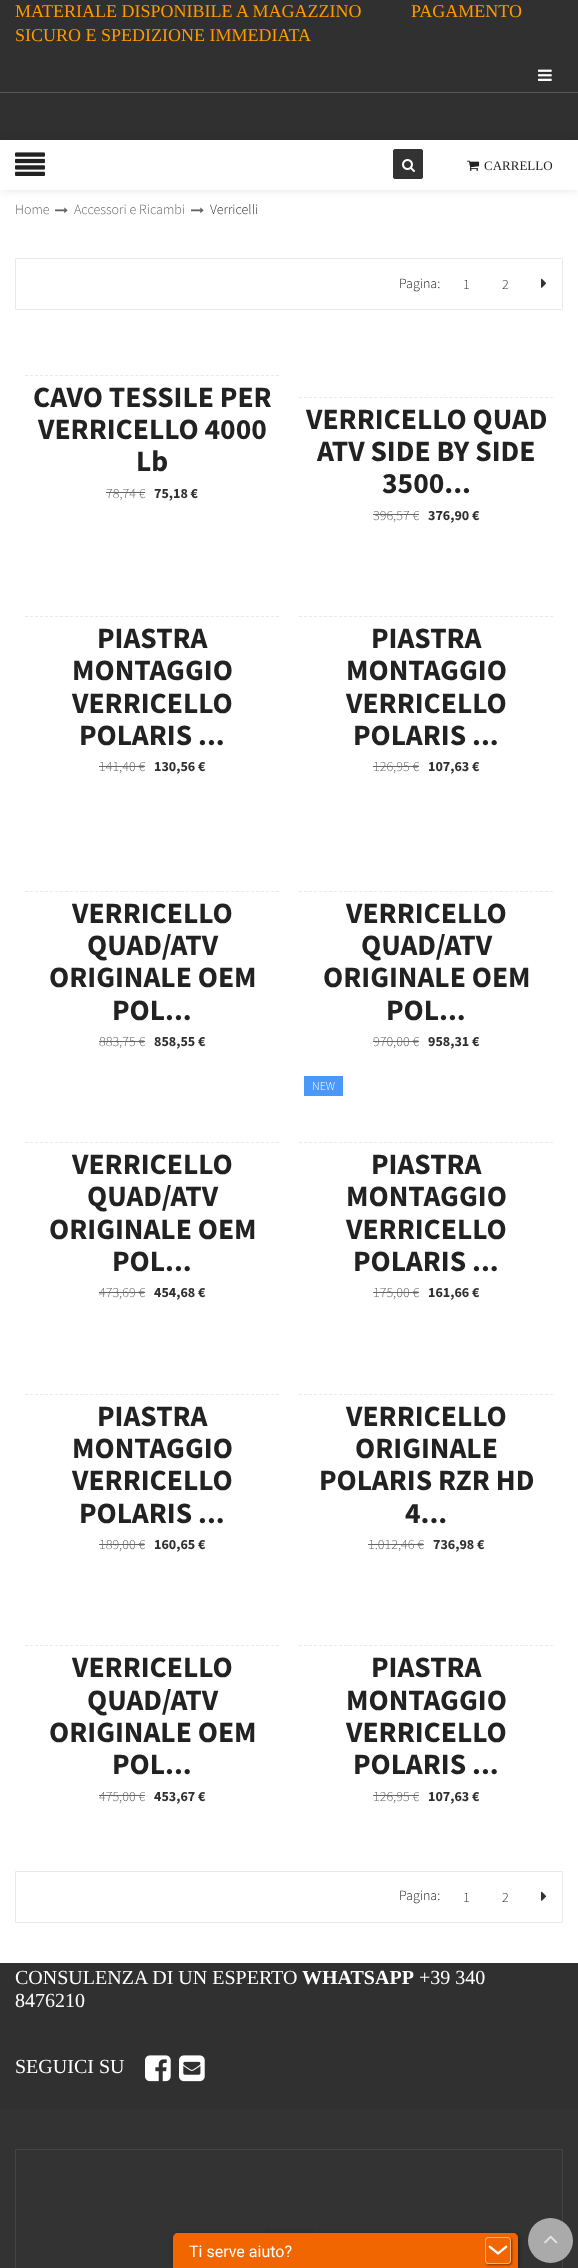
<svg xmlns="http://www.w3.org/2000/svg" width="578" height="2268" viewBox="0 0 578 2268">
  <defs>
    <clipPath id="clip1"><path d="M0 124H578V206H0ZM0 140H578V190H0Z" clip-rule="evenodd"/></clipPath>
    <clipPath id="clip2"><path d="M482 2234H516V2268H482ZM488 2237H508C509.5 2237 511 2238.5 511 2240V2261C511 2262.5 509.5 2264 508 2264H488C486.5 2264 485 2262.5 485 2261V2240C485 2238.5 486.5 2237 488 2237Z" clip-rule="evenodd"/></clipPath>
  </defs>
  <rect width="100%" height="100%" fill="#fff"/>
  <path d="M0 0h578v92H0z" fill="#303030"/>
  <image x="538" y="69" width="14" height="12" href="img/1.png"/>
  <path d="M0 92h578v1H0z" fill="#595959"/>
  <path d="M0 93h578v47H0z" fill="#303030"/>
  <g clip-path="url(#clip1)">
    <path d="M0 140h578v50H0z" fill="#0000001a" filter="blur(5px)"/>
  </g>
  <rect x="393.5" y="149.5" width="29" height="29" rx="1.5" fill="#333" stroke="#333"/>
  <image x="402" y="159" width="13" height="13" href="img/2.png"/>
  <image x="15" y="152" width="30" height="24" href="img/3.png"/>
  <image x="467" y="160" width="13" height="11" href="img/4.png"/>
  <image x="55" y="207" width="13" height="7" href="img/5.png"/>
  <image x="191" y="207" width="13" height="7" href="img/5.png"/>
  <path d="M15.5 258.5h547v51H15.5z" fill="none" stroke="#eaeaea"/>
  <image x="541" y="278" width="6" height="10" href="img/6.png"/>
  <path d="M25 375.5H279" fill="none" stroke="#eaeaea" stroke-dasharray="3 2.02"/>
  <path d="M106 492h39v1H106z" fill="#666"/>
  <path d="M299 397.5H553" fill="none" stroke="#eaeaea" stroke-dasharray="3 2.02"/>
  <path d="M373 514h46v1H373z" fill="#666"/>
  <path d="M25 616.5H279" fill="none" stroke="#eaeaea" stroke-dasharray="3 2.02"/>
  <path d="M99 766h46v1H99z" fill="#666"/>
  <path d="M299 616.5H553" fill="none" stroke="#eaeaea" stroke-dasharray="3 2.02"/>
  <path d="M373 766h46v1H373z" fill="#666"/>
  <path d="M25 891.5H279" fill="none" stroke="#eaeaea" stroke-dasharray="3 2.02"/>
  <path d="M99 1041h46v1H99z" fill="#666"/>
  <path d="M299 891.5H553" fill="none" stroke="#eaeaea" stroke-dasharray="3 2.02"/>
  <path d="M373 1041h46v1H373z" fill="#666"/>
  <path d="M25 1142.5H279" fill="none" stroke="#eaeaea" stroke-dasharray="3 2.02"/>
  <path d="M99 1292h46v1H99z" fill="#666"/>
  <path d="M304 1076h39v20H304z" fill="#4a99f8"/>
  <path d="M299 1142.5H553" fill="none" stroke="#eaeaea" stroke-dasharray="3 2.02"/>
  <path d="M373 1292h46v1H373z" fill="#666"/>
  <path d="M25 1394.5H279" fill="none" stroke="#eaeaea" stroke-dasharray="3 2.02"/>
  <path d="M99 1544h46v1H99z" fill="#666"/>
  <path d="M299 1394.5H553" fill="none" stroke="#eaeaea" stroke-dasharray="3 2.02"/>
  <path d="M368 1544h56v1H368z" fill="#666"/>
  <path d="M25 1645.5H279" fill="none" stroke="#eaeaea" stroke-dasharray="3 2.02"/>
  <path d="M99 1795h46v1H99z" fill="#666"/>
  <path d="M299 1645.5H553" fill="none" stroke="#eaeaea" stroke-dasharray="3 2.02"/>
  <path d="M373 1795h46v1H373z" fill="#666"/>
  <path d="M15.5 1871.5h547v51H15.5z" fill="none" stroke="#eaeaea"/>
  <image x="541" y="1891" width="6" height="10" href="img/6.png"/>
  <path d="M0 1963h578v146H0z" fill="#303030"/>
  <image x="145" y="2055" width="26" height="27" href="img/7.png"/>
  <image x="179" y="2055" width="26" height="27" href="img/8.png"/>
  <path d="M0 2109h578v159H0z" fill="#333"/>
  <path d="M15.5 2149.5h547v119H15.5z" fill="none" stroke="#444"/>
  <path d="M265 2228h48v5H265z" fill="#303030"/>
  <circle cx="550.5" cy="2240.5" r="22.5" fill="#aaa"/>
  <image x="544" y="2235" width="14" height="9" href="img/9.png"/>
  <rect x="174" y="2234" width="345" height="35" rx="5" fill="#00000066" filter="blur(2px)"/>
  <path d="M178 2233H513C516 2233 518 2235 518 2238V2268H173V2238C173 2235 175 2233 178 2233Z" fill="#f26602"/>
  <g clip-path="url(#clip2)">
    <rect x="486" y="2238" width="26" height="27" rx="3" fill="#00000080" filter="blur(1px)"/>
  </g>
  <rect x="485.5" y="2237.5" width="25" height="26" rx="2.5" fill="none" stroke="#ffffff80"/>
  <image x="488" y="2245" width="20" height="10" href="img/10.png"/>
  <g font-family="Liberation Serif" font-size="18" fill="#f90">
    <text x="15" y="17" xml:space="preserve">MATERIALE DISPONIBILE A MAGAZZINO           PAGAMENTO</text>
    <text x="15" y="41">SICURO E SPEDIZIONE IMMEDIATA</text>
  </g>
  <text x="484" y="170" font-family="Liberation Serif" font-size="13" fill="#222">CARRELLO</text>
  <g font-family="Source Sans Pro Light" font-size="14" font-weight="300" fill="#666">
    <text x="15" y="214">Home</text>
    <text x="74" y="214">Accessori e Ricambi</text>
  </g>
  <text x="210" y="214" font-family="Source Sans Pro Light" font-size="14" font-weight="300" fill="#303030">Verricelli</text>
  <text x="399" y="288" font-family="Source Sans Pro Light" font-size="14" font-weight="300" fill="#222">Pagina:</text>
  <g font-family="Source Sans Pro Light" font-size="14" font-weight="300" fill="#303030">
    <text x="463" y="289">1</text>
    <text x="502" y="289">2</text>
  </g>
  <g font-family="Source Sans Pro" font-size="29.5" font-weight="bold" fill="#222">
    <text x="33" y="407">CAVO TESSILE PER</text>
    <text x="38" y="439">VERRICELLO 4000</text>
    <text x="136" y="471">Lb</text>
  </g>
  <text x="106" y="498" font-family="Source Sans Pro Light" font-size="14" font-weight="300" fill="#666">78,74 €</text>
  <text x="154" y="498" font-family="Source Sans Pro" font-size="14" font-weight="bold" fill="#303030">75,18 €</text>
  <g font-family="Source Sans Pro" font-size="29.5" font-weight="bold" fill="#222">
    <text x="306" y="429">VERRICELLO QUAD</text>
    <text x="317" y="461">ATV SIDE BY SIDE</text>
    <text x="382" y="493">3500...</text>
  </g>
  <text x="373" y="520" font-family="Source Sans Pro Light" font-size="14" font-weight="300" fill="#666">396,57 €</text>
  <text x="428" y="520" font-family="Source Sans Pro" font-size="14" font-weight="bold" fill="#303030">376,90 €</text>
  <g font-family="Source Sans Pro" font-size="29.5" font-weight="bold" fill="#222">
    <text x="97" y="648">PIASTRA</text>
    <text x="72" y="680">MONTAGGIO</text>
    <text x="72" y="713">VERRICELLO</text>
    <text x="79" y="745">POLARIS ...</text>
  </g>
  <text x="99" y="771" font-family="Source Sans Pro Light" font-size="14" font-weight="300" fill="#666">141,40 €</text>
  <text x="154" y="771" font-family="Source Sans Pro" font-size="14" font-weight="bold" fill="#303030">130,56 €</text>
  <g font-family="Source Sans Pro" font-size="29.5" font-weight="bold" fill="#222">
    <text x="371" y="648">PIASTRA</text>
    <text x="346" y="680">MONTAGGIO</text>
    <text x="346" y="713">VERRICELLO</text>
    <text x="353" y="745">POLARIS ...</text>
  </g>
  <text x="373" y="771" font-family="Source Sans Pro Light" font-size="14" font-weight="300" fill="#666">126,95 €</text>
  <text x="428" y="771" font-family="Source Sans Pro" font-size="14" font-weight="bold" fill="#303030">107,63 €</text>
  <g font-family="Source Sans Pro" font-size="29.5" font-weight="bold" fill="#222">
    <text x="72" y="923">VERRICELLO</text>
    <text x="87" y="955">QUAD/ATV</text>
    <text x="49" y="987">ORIGINALE OEM</text>
    <text x="112" y="1020">POL...</text>
  </g>
  <text x="99" y="1046" font-family="Source Sans Pro Light" font-size="14" font-weight="300" fill="#666">883,75 €</text>
  <text x="154" y="1046" font-family="Source Sans Pro" font-size="14" font-weight="bold" fill="#303030">858,55 €</text>
  <g font-family="Source Sans Pro" font-size="29.5" font-weight="bold" fill="#222">
    <text x="346" y="923">VERRICELLO</text>
    <text x="361" y="955">QUAD/ATV</text>
    <text x="323" y="987">ORIGINALE OEM</text>
    <text x="386" y="1020">POL...</text>
  </g>
  <text x="373" y="1046" font-family="Source Sans Pro Light" font-size="14" font-weight="300" fill="#666">970,00 €</text>
  <text x="428" y="1046" font-family="Source Sans Pro" font-size="14" font-weight="bold" fill="#303030">958,31 €</text>
  <g font-family="Source Sans Pro" font-size="29.5" font-weight="bold" fill="#222">
    <text x="72" y="1174">VERRICELLO</text>
    <text x="87" y="1206">QUAD/ATV</text>
    <text x="49" y="1239">ORIGINALE OEM</text>
    <text x="112" y="1271">POL...</text>
  </g>
  <text x="99" y="1297" font-family="Source Sans Pro Light" font-size="14" font-weight="300" fill="#666">473,69 €</text>
  <text x="154" y="1297" font-family="Source Sans Pro" font-size="14" font-weight="bold" fill="#303030">454,68 €</text>
  <text x="312" y="1090" font-family="Source Sans Pro Light" font-size="12" font-weight="300" fill="#fff">NEW</text>
  <g font-family="Source Sans Pro" font-size="29.5" font-weight="bold" fill="#222">
    <text x="371" y="1174">PIASTRA</text>
    <text x="346" y="1206">MONTAGGIO</text>
    <text x="346" y="1239">VERRICELLO</text>
    <text x="353" y="1271">POLARIS ...</text>
  </g>
  <text x="373" y="1297" font-family="Source Sans Pro Light" font-size="14" font-weight="300" fill="#666">175,00 €</text>
  <text x="428" y="1297" font-family="Source Sans Pro" font-size="14" font-weight="bold" fill="#303030">161,66 €</text>
  <g font-family="Source Sans Pro" font-size="29.5" font-weight="bold" fill="#222">
    <text x="97" y="1426">PIASTRA</text>
    <text x="72" y="1458">MONTAGGIO</text>
    <text x="72" y="1490">VERRICELLO</text>
    <text x="79" y="1523">POLARIS ...</text>
  </g>
  <text x="99" y="1549" font-family="Source Sans Pro Light" font-size="14" font-weight="300" fill="#666">189,00 €</text>
  <text x="154" y="1549" font-family="Source Sans Pro" font-size="14" font-weight="bold" fill="#303030">160,65 €</text>
  <g font-family="Source Sans Pro" font-size="29.5" font-weight="bold" fill="#222">
    <text x="346" y="1426">VERRICELLO</text>
    <text x="355" y="1458">ORIGINALE</text>
    <text x="319" y="1490">POLARIS RZR HD</text>
    <text x="405" y="1523">4...</text>
  </g>
  <text x="368" y="1549" font-family="Source Sans Pro Light" font-size="14" font-weight="300" fill="#666">1.012,46 €</text>
  <text x="433" y="1549" font-family="Source Sans Pro" font-size="14" font-weight="bold" fill="#303030">736,98 €</text>
  <g font-family="Source Sans Pro" font-size="29.5" font-weight="bold" fill="#222">
    <text x="72" y="1677">VERRICELLO</text>
    <text x="87" y="1710">QUAD/ATV</text>
    <text x="49" y="1742">ORIGINALE OEM</text>
    <text x="112" y="1774">POL...</text>
  </g>
  <text x="99" y="1801" font-family="Source Sans Pro Light" font-size="14" font-weight="300" fill="#666">475,00 €</text>
  <text x="154" y="1801" font-family="Source Sans Pro" font-size="14" font-weight="bold" fill="#303030">453,67 €</text>
  <g font-family="Source Sans Pro" font-size="29.5" font-weight="bold" fill="#222">
    <text x="371" y="1677">PIASTRA</text>
    <text x="346" y="1710">MONTAGGIO</text>
    <text x="346" y="1742">VERRICELLO</text>
    <text x="353" y="1774">POLARIS ...</text>
  </g>
  <text x="373" y="1801" font-family="Source Sans Pro Light" font-size="14" font-weight="300" fill="#666">126,95 €</text>
  <text x="428" y="1801" font-family="Source Sans Pro" font-size="14" font-weight="bold" fill="#303030">107,63 €</text>
  <text x="399" y="1900" font-family="Source Sans Pro Light" font-size="14" font-weight="300" fill="#222">Pagina:</text>
  <g font-family="Source Sans Pro Light" font-size="14" font-weight="300" fill="#303030">
    <text x="463" y="1902">1</text>
    <text x="502" y="1902">2</text>
  </g>
  <text x="15" y="1984" font-family="Liberation Serif" font-size="20" fill="#fff">CONSULENZA DI UN ESPERTO</text>
  <text x="302" y="1984" font-family="Liberation Serif" font-size="20" font-weight="bold" fill="#fff">WHATSAPP</text>
  <g font-family="Liberation Serif" font-size="20" fill="#fff">
    <text x="419" y="1984">+39 340</text>
    <text x="15" y="2007">8476210</text>
    <text x="15" y="2073">SEGUICI SU</text>
  </g>
  <text x="189" y="2257" font-family="Roboto" font-size="16" fill="#fff">Ti serve aiuto?</text>
</svg>
